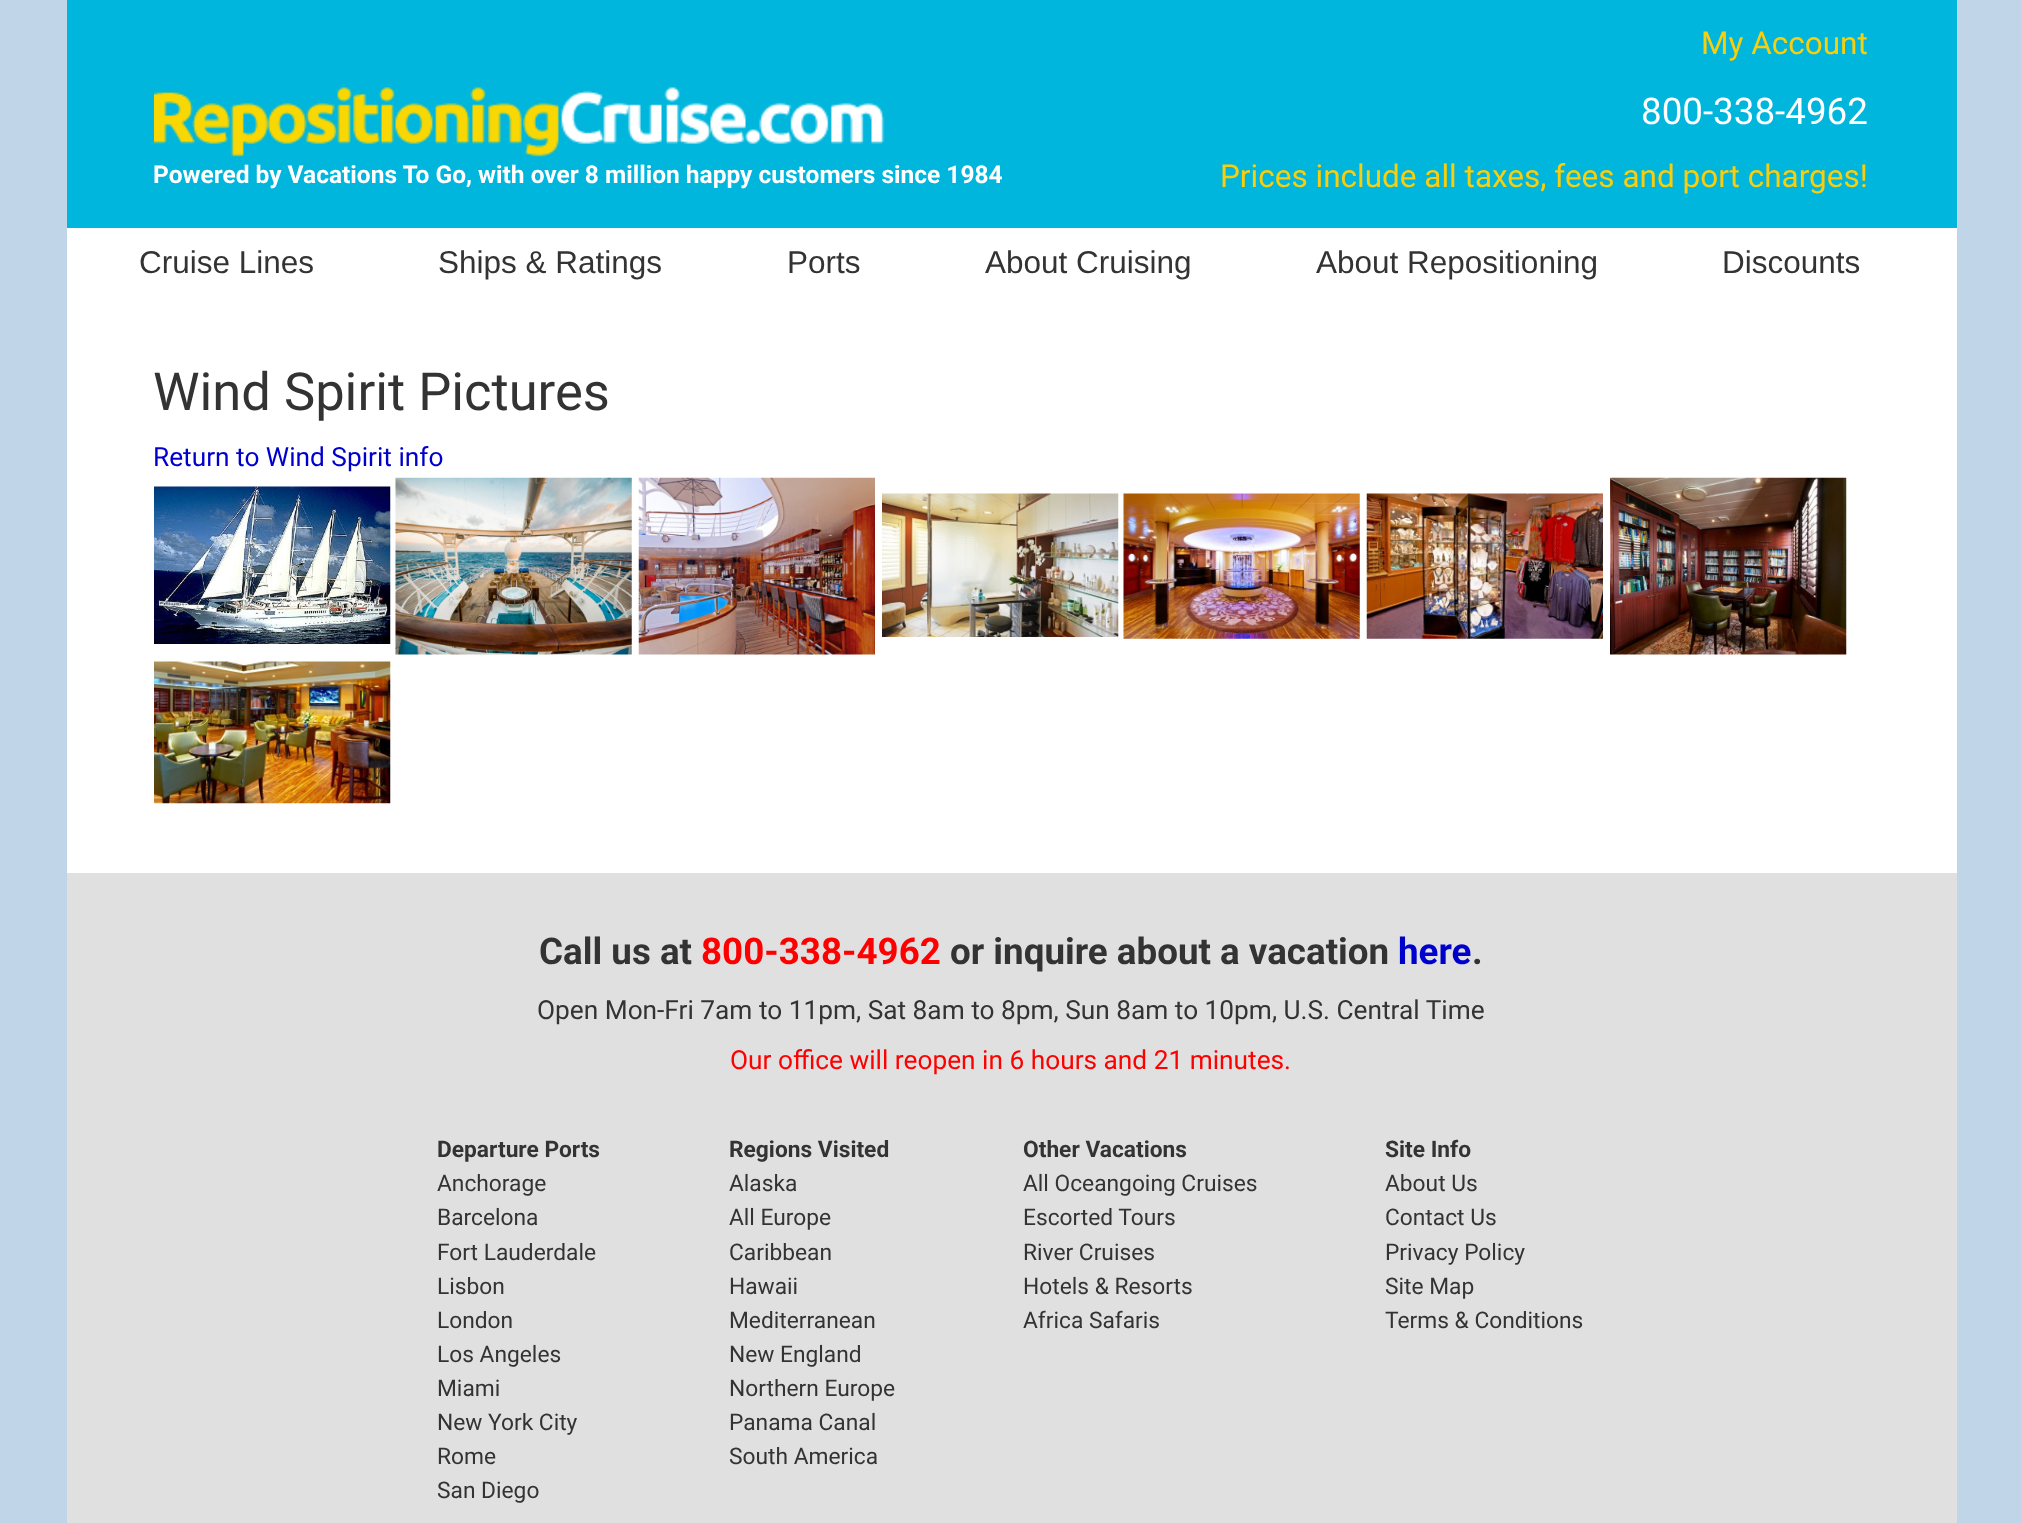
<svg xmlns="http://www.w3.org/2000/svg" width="2021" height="1523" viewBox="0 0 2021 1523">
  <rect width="100%" height="100%" fill="#c1d5e8"/>
  <path d="M67 228h1890v645H67z" fill="#fff"/>
  <path d="M67 0h1890v228H67z" fill="#00b6dd"/>
  <image x="154" y="87" width="731" height="70" href="img/1.png"/>
  <image x="154" y="486" width="237" height="158" href="img/2.png"/>
  <image x="395" y="477" width="237" height="178" href="img/3.png"/>
  <image x="638" y="477" width="237" height="178" href="img/4.png"/>
  <image x="882" y="493" width="237" height="144" href="img/5.png"/>
  <image x="1123" y="493" width="237" height="146" href="img/6.png"/>
  <image x="1366" y="493" width="237" height="146" href="img/7.png"/>
  <image x="1610" y="477" width="237" height="178" href="img/8.png"/>
  <image x="154" y="661" width="237" height="143" href="img/9.png"/>
  <path d="M67 873h1890v650H67z" fill="#e0e0e0"/>
  <text x="153" y="183" font-family="Roboto" font-size="24.5" font-weight="bold" fill="#fff">Powered by Vacations To Go, with over 8 million happy customers since 1984</text>
  <text x="1701" y="54" font-family="Roboto" font-size="31.5" fill="#f9ce0c">My Account</text>
  <text x="1641" y="124" font-family="Roboto" font-size="36.75" fill="#fff">800-338-4962</text>
  <text x="1220" y="187" font-family="Roboto" font-size="31.5" fill="#f9ce0c">Prices include all taxes, fees and port charges!</text>
  <g font-family="Liberation Sans" font-size="31.5" fill="#333">
    <text x="139" y="273">Cruise Lines</text>
    <text x="438" y="273">Ships &amp; Ratings</text>
    <text x="787" y="273">Ports</text>
    <text x="985" y="273">About Cruising</text>
    <text x="1316" y="273">About Repositioning</text>
    <text x="1722" y="273">Discounts</text>
  </g>
  <text x="153" y="410" font-family="Roboto" font-size="52.5" fill="#333">Wind Spirit Pictures</text>
  <text x="153" y="466" font-family="Roboto" font-size="26.25" fill="#0000cd">Return to Wind Spirit info</text>
  <text x="539" y="964" font-family="Roboto" font-size="36.75" font-weight="bold" fill="#333">Call us at</text>
  <text x="701" y="964" font-family="Roboto" font-size="36.75" font-weight="bold" fill="#f00">800-338-4962</text>
  <text x="950" y="964" font-family="Roboto" font-size="36.75" font-weight="bold" fill="#333">or inquire about a vacation</text>
  <text x="1398" y="964" font-family="Roboto" font-size="36.75" font-weight="bold" fill="#0000cd">here</text>
  <text x="1472" y="964" font-family="Roboto" font-size="36.75" font-weight="bold" fill="#333">.</text>
  <text x="537" y="1019" font-family="Roboto" font-size="26.25" fill="#333">Open Mon-Fri 7am to 11pm, Sat 8am to 8pm, Sun 8am to 10pm, U.S. Central Time</text>
  <text x="730" y="1069" font-family="Roboto" font-size="26.25" fill="#f00">Our office will reopen in 6 hours and 21 minutes.</text>
  <text x="437" y="1157" font-family="Roboto" font-size="22.75" font-weight="bold" fill="#333">Departure Ports</text>
  <g font-family="Roboto" font-size="22.75" fill="#333">
    <text x="437" y="1191">Anchorage</text>
    <text x="437" y="1225">Barcelona</text>
    <text x="437" y="1260">Fort Lauderdale</text>
    <text x="437" y="1294">Lisbon</text>
    <text x="437" y="1328">London</text>
    <text x="437" y="1362">Los Angeles</text>
    <text x="437" y="1396">Miami</text>
    <text x="437" y="1430">New York City</text>
    <text x="437" y="1464">Rome</text>
    <text x="437" y="1498">San Diego</text>
  </g>
  <text x="729" y="1157" font-family="Roboto" font-size="22.75" font-weight="bold" fill="#333">Regions Visited</text>
  <g font-family="Roboto" font-size="22.75" fill="#333">
    <text x="729" y="1191">Alaska</text>
    <text x="729" y="1225">All Europe</text>
    <text x="729" y="1260">Caribbean</text>
    <text x="729" y="1294">Hawaii</text>
    <text x="729" y="1328">Mediterranean</text>
    <text x="729" y="1362">New England</text>
    <text x="729" y="1396">Northern Europe</text>
    <text x="729" y="1430">Panama Canal</text>
    <text x="729" y="1464">South America</text>
  </g>
  <text x="1023" y="1157" font-family="Roboto" font-size="22.75" font-weight="bold" fill="#333">Other Vacations</text>
  <g font-family="Roboto" font-size="22.75" fill="#333">
    <text x="1023" y="1191">All Oceangoing Cruises</text>
    <text x="1023" y="1225">Escorted Tours</text>
    <text x="1023" y="1260">River Cruises</text>
    <text x="1023" y="1294">Hotels &amp; Resorts</text>
    <text x="1023" y="1328">Africa Safaris</text>
  </g>
  <text x="1385" y="1157" font-family="Roboto" font-size="22.75" font-weight="bold" fill="#333">Site Info</text>
  <g font-family="Roboto" font-size="22.75" fill="#333">
    <text x="1385" y="1191">About Us</text>
    <text x="1385" y="1225">Contact Us</text>
    <text x="1385" y="1260">Privacy Policy</text>
    <text x="1385" y="1294">Site Map</text>
    <text x="1385" y="1328">Terms &amp; Conditions</text>
  </g>
</svg>
